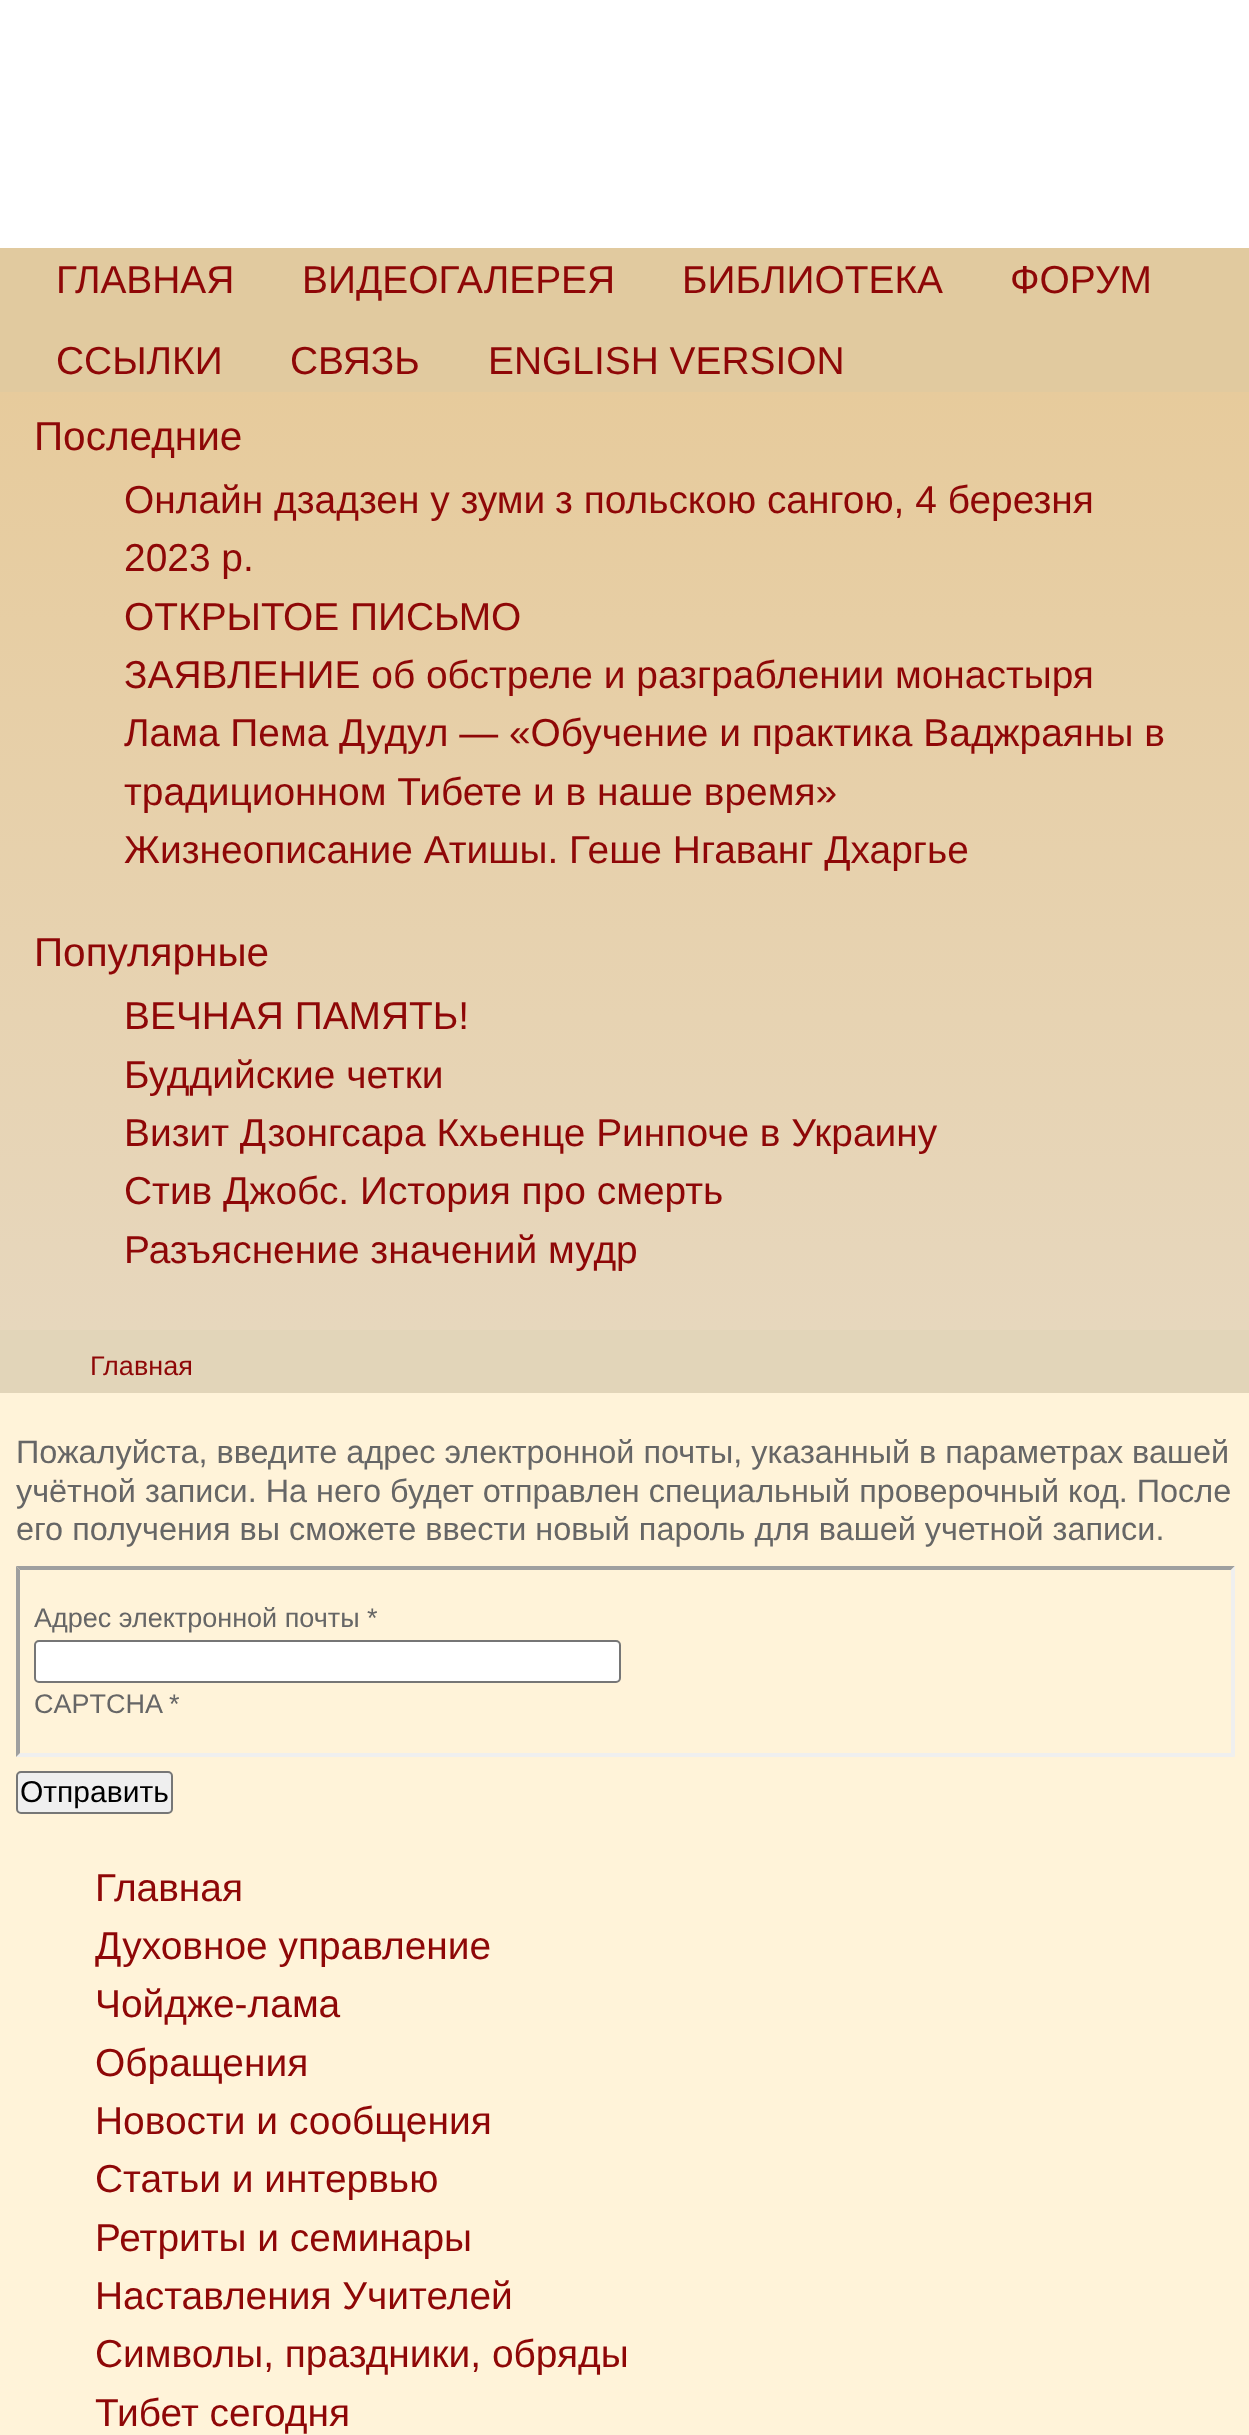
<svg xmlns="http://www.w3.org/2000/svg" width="1249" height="2435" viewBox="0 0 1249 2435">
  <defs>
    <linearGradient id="g1" gradientUnits="userSpaceOnUse" x1="626" y1="391" x2="626" y2="1330"><stop offset="0" stop-color="#e7cb9c"/><stop offset="1" stop-color="#e7d7bd"/></linearGradient>
  </defs>
  <rect width="100%" height="100%" fill="#fff"/>
  <path d="M0 248h1249v144H0z" fill="#e1ca9f"/>
  <path d="M0 392h1249v938H0z" fill="url(#g1)"/>
  <path d="M0 1330h1249v63H0z" fill="#e2d5b9"/>
  <path d="M0 1393h1249v1042H0z" fill="#fff3d9"/>
  <path d="M16 1566H1235L1231 1570H20Z" fill="#9f9f9f"/>
  <path d="M1235 1566V1757L1231 1753V1570Z" fill="#efefef"/>
  <path d="M1235 1757H16L20 1753H1231Z" fill="#efefef"/>
  <path d="M16 1757V1566L20 1570V1753Z" fill="#9f9f9f"/>
  <rect x="35" y="1641" width="585" height="41" rx="4" fill="#fff" stroke="#767676" stroke-width="2"/>
  <rect x="17" y="1772" width="155" height="41" rx="4" fill="#efefef" stroke="#767676" stroke-width="2"/>
  <g font-family="Liberation Sans" font-size="38.9" fill="#8e0707">
    <text x="56" y="293">ГЛАВНАЯ</text>
    <text x="302" y="293">ВИДЕОГАЛЕРЕЯ</text>
    <text x="682" y="293">БИБЛИОТЕКА</text>
    <text x="1010" y="293">ФОРУМ</text>
    <text x="56" y="374">ССЫЛКИ</text>
    <text x="290" y="374">СВЯЗЬ</text>
    <text x="488" y="374">ENGLISH VERSION</text>
  </g>
  <text x="34" y="450" font-family="Liberation Sans" font-size="40.5" fill="#8e0707">Последние</text>
  <g font-family="Liberation Sans" font-size="38.9" fill="#8e0707">
    <text x="124" y="513">Онлайн дзадзен у зуми</text>
    <text x="555" y="513">з польскою сангою, 4 березня</text>
    <text x="124" y="571">2023 р.</text>
    <text x="124" y="630">ОТКРЫТОЕ ПИСЬМО</text>
    <text x="124" y="688">ЗАЯВЛЕНИЕ об обстреле и разграблении монастыря</text>
    <text x="124" y="746">Лама Пема Дудул — «Обучение и практика Ваджраяны в</text>
    <text x="124" y="805">традиционном Тибете и в наше время»</text>
    <text x="124" y="863">Жизнеописание Атишы. Геше Нгаванг Дхаргье</text>
  </g>
  <text x="34" y="966" font-family="Liberation Sans" font-size="40.5" fill="#8e0707">Популярные</text>
  <g font-family="Liberation Sans" font-size="38.9" fill="#8e0707">
    <text x="124" y="1029">ВЕЧНАЯ ПАМЯТЬ!</text>
    <text x="124" y="1088">Буддийские четки</text>
    <text x="124" y="1146">Визит Дзонгсара Кхьенце Ринпоче в Украину</text>
    <text x="124" y="1204">Стив Джобс. История про смерть</text>
    <text x="124" y="1263">Разъяснение значений мудр</text>
  </g>
  <text x="90" y="1375" font-family="Liberation Sans" font-size="27" fill="#8e0707">Главная</text>
  <g font-family="Liberation Sans" font-size="32.4" fill="#666">
    <text x="16" y="1463">Пожалуйста, введите адрес электронной почты, указанный в параметрах вашей</text>
    <text x="16" y="1502">учётной записи. На него будет отправлен специальный проверочный код. После</text>
    <text x="16" y="1540">его получения вы сможете ввести новый пароль для вашей учетной записи.</text>
  </g>
  <g font-family="Liberation Sans" font-size="27" fill="#666">
    <text x="34" y="1627">Адрес электронной почты *</text>
    <text x="34" y="1713">CAPTCHA *</text>
  </g>
  <text x="20" y="1802" font-family="Liberation Sans" font-size="30" fill="#000">Отправить</text>
  <g font-family="Liberation Sans" font-size="38.9" fill="#8e0707">
    <text x="95" y="1901">Главная</text>
    <text x="95" y="1959">Духовное управление</text>
    <text x="95" y="2017">Чойдже-лама</text>
    <text x="95" y="2076">Обращения</text>
    <text x="95" y="2134">Новости и сообщения</text>
    <text x="95" y="2192">Статьи и интервью</text>
    <text x="95" y="2251">Ретриты и семинары</text>
    <text x="95" y="2309">Наставления Учителей</text>
    <text x="95" y="2367">Символы, праздники, обряды</text>
    <text x="95" y="2426">Тибет сегодня</text>
  </g>
</svg>
